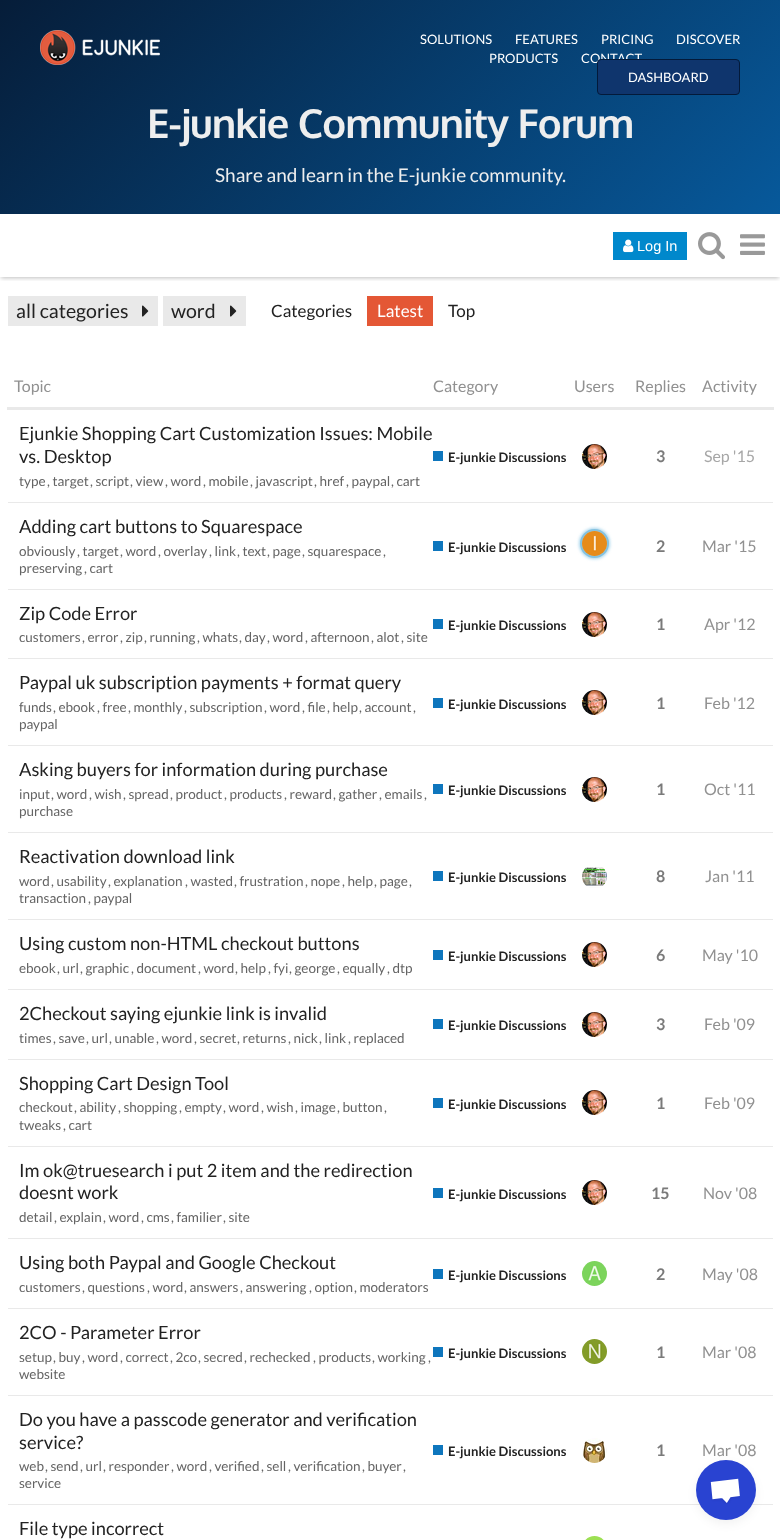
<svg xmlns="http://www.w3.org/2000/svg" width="780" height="1540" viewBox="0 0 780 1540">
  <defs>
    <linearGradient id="g1" gradientUnits="userSpaceOnUse" x1="142" y1="-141" x2="639" y2="356"><stop offset="0" stop-color="#061d39"/><stop offset="1" stop-color="#07599b"/></linearGradient>
    <clipPath id="clip1"><path d="M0 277h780v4H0z"/></clipPath>
  </defs>
  <rect width="100%" height="100%" fill="#fff"/>
  <path d="M0 0h780v214H0z" fill="url(#g1)"/>
  <image x="40" y="30" width="120" height="35" href="img/1.png"/>
  <g clip-path="url(#clip1)">
    <path d="M1 217h778v61H1z" fill="#00000040" filter="blur(2px)"/>
  </g>
  <path d="M613 232h74v28H613z" fill="#08c"/>
  <image x="623" y="239" width="11" height="14" href="img/2.png"/>
  <image x="698" y="232" width="27" height="28" href="img/3.png"/>
  <image x="740" y="234" width="25" height="21" href="img/4.png"/>
  <path d="M8 296h150v30H8z" fill="#e9e9e9"/>
  <image x="142" y="305" width="7" height="12" href="img/5.png"/>
  <path d="M163 296h83v30H163z" fill="#e9e9e9"/>
  <image x="230" y="305" width="7" height="12" href="img/5.png"/>
  <path d="M367 296h66v30H367z" fill="#e45735"/>
  <path d="M8 502h765v1H8z" fill="#e9e9e9"/>
  <path d="M7 407h767v3H7z" fill="#e9e9e9"/>
  <path d="M433 451h10v10H433z" fill="#0e76bd"/>
  <image x="582" y="444" width="25" height="25" href="img/6.png"/>
  <path d="M8 589h765v1H8z" fill="#e9e9e9"/>
  <path d="M433 541h10v10H433z" fill="#0e76bd"/>
  <rect x="579" y="528" width="31" height="31" rx="15.5" fill="#a7d5ec" filter="blur(1.5px)"/>
  <circle cx="594.5" cy="543.5" r="13.5" fill="none" stroke="#85c2e0" stroke-width="2"/>
  <image x="582" y="531" width="25" height="25" href="img/7.png"/>
  <path d="M8 658h765v1H8z" fill="#e9e9e9"/>
  <path d="M433 619h10v10H433z" fill="#0e76bd"/>
  <image x="582" y="612" width="25" height="25" href="img/6.png"/>
  <path d="M8 745h765v1H8z" fill="#e9e9e9"/>
  <path d="M433 698h10v10H433z" fill="#0e76bd"/>
  <image x="582" y="690" width="25" height="25" href="img/6.png"/>
  <path d="M8 832h765v1H8z" fill="#e9e9e9"/>
  <path d="M433 784h10v10H433z" fill="#0e76bd"/>
  <image x="582" y="777" width="25" height="25" href="img/6.png"/>
  <path d="M8 919h765v1H8z" fill="#e9e9e9"/>
  <path d="M433 871h10v10H433z" fill="#0e76bd"/>
  <image x="582" y="867" width="25" height="21" href="img/8.png"/>
  <path d="M8 989h765v1H8z" fill="#e9e9e9"/>
  <path d="M433 950h10v10H433z" fill="#0e76bd"/>
  <image x="582" y="942" width="25" height="25" href="img/6.png"/>
  <path d="M8 1059h765v1H8z" fill="#e9e9e9"/>
  <path d="M433 1019h10v10H433z" fill="#0e76bd"/>
  <image x="582" y="1012" width="25" height="25" href="img/9.png"/>
  <path d="M8 1146h765v1H8z" fill="#e9e9e9"/>
  <path d="M433 1098h10v10H433z" fill="#0e76bd"/>
  <image x="582" y="1090" width="25" height="25" href="img/6.png"/>
  <path d="M8 1238h765v1H8z" fill="#e9e9e9"/>
  <path d="M433 1188h10v10H433z" fill="#0e76bd"/>
  <image x="582" y="1180" width="25" height="25" href="img/6.png"/>
  <path d="M8 1308h765v1H8z" fill="#e9e9e9"/>
  <path d="M433 1269h10v10H433z" fill="#0e76bd"/>
  <image x="582" y="1261" width="25" height="25" href="img/10.png"/>
  <path d="M8 1395h765v1H8z" fill="#e9e9e9"/>
  <path d="M433 1347h10v10H433z" fill="#0e76bd"/>
  <image x="582" y="1339" width="25" height="25" href="img/11.png"/>
  <path d="M8 1504h765v1H8z" fill="#e9e9e9"/>
  <path d="M433 1445h10v10H433z" fill="#0e76bd"/>
  <image x="582" y="1438" width="25" height="25" href="img/12.png"/>
  <image x="585" y="1536" width="19" height="4" href="img/13.png"/>
  <rect x="696" y="1464" width="60" height="60" rx="30" fill="#0000000d" filter="blur(5px)"/>
  <circle cx="726" cy="1490" r="30" fill="#2943d1"/>
  <image x="710" y="1478" width="30" height="26" href="img/14.png"/>
  <g font-family="Lato" font-size="13" fill="#fff">
    <text x="420" y="44">SOLUTIONS</text>
    <text x="515" y="44">FEATURES</text>
    <text x="601" y="44">PRICING</text>
    <text x="676" y="44">DISCOVER</text>
    <text x="489" y="63">PRODUCTS</text>
    <text x="581" y="63">CONTACT</text>
  </g>
  <rect x="597.5" y="59.5" width="142" height="35" rx="3.5" fill="#0f356d" stroke="#031a3a"/>
  <text x="628" y="82" font-family="Lato" font-size="13" fill="#fff">DASHBOARD</text>
  <text x="147" y="138" font-family="Oxygen" font-size="40" font-weight="bold" letter-spacing="-1" fill="#eee">E-junkie Community Forum</text>
  <text x="215" y="182" font-family="Lato" font-size="19" fill="#eee">Share and learn in the E-junkie community.</text>
  <text x="637" y="251" font-family="Liberation Sans" font-size="14.5" fill="#fff">Log In</text>
  <g font-family="Lato" font-size="19.5" fill="#222">
    <text x="16" y="318">all categories</text>
    <text x="171" y="318">word</text>
  </g>
  <text x="271" y="317" font-family="Lato" font-size="17" fill="#222">Categories</text>
  <text x="377" y="317" font-family="Lato" font-size="17" fill="#fff">Latest</text>
  <text x="448" y="317" font-family="Lato" font-size="17" fill="#222">Top</text>
  <g font-family="Lato" font-size="16" fill="#919191">
    <text x="14" y="392">Topic</text>
    <text x="433" y="392">Category</text>
    <text x="574" y="392">Users</text>
    <text x="635" y="392">Replies</text>
    <text x="702" y="392">Activity</text>
  </g>
  <g font-family="Lato" font-size="18.25" fill="#222">
    <text x="19" y="440">Ejunkie Shopping Cart Customization Issues: Mobile</text>
    <text x="19" y="463">vs. Desktop</text>
  </g>
  <g font-family="Lato" font-size="13.5" fill="#646464">
    <text x="19" y="486">type</text>
    <text x="47" y="486">, target</text>
    <text x="90" y="486">, script</text>
    <text x="130" y="486">, view</text>
    <text x="165" y="486">, word</text>
    <text x="203" y="486">, mobile</text>
    <text x="250" y="486">, javascript</text>
    <text x="314" y="486">, href</text>
    <text x="346" y="486">, paypal</text>
    <text x="391" y="486">, cart</text>
  </g>
  <text x="448" y="462" font-family="Lato" font-size="13" font-weight="bold" fill="#222">E-junkie Discussions</text>
  <text x="656" y="462" font-family="Lato" font-size="16" font-weight="bold" fill="#7a7a7a">3</text>
  <text x="704" y="462" font-family="Lato" font-size="16" fill="#a7a7a7">Sep '15</text>
  <text x="19" y="533" font-family="Lato" font-size="18.25" fill="#222">Adding cart buttons to Squarespace</text>
  <g font-family="Lato" font-size="13.5" fill="#646464">
    <text x="19" y="556">obviously</text>
    <text x="77" y="556">, target</text>
    <text x="120" y="556">, word</text>
    <text x="158" y="556">, overlay</text>
    <text x="209" y="556">, link</text>
    <text x="237" y="556">, text</text>
    <text x="267" y="556">, page</text>
    <text x="302" y="556">, squarespace</text>
    <text x="383" y="556">,</text>
    <text x="19" y="573">preserving</text>
    <text x="84" y="573">, cart</text>
  </g>
  <text x="448" y="552" font-family="Lato" font-size="13" font-weight="bold" fill="#222">E-junkie Discussions</text>
  <text x="656" y="552" font-family="Lato" font-size="16" font-weight="bold" fill="#7a7a7a">2</text>
  <text x="702" y="552" font-family="Lato" font-size="16" fill="#919191">Mar '15</text>
  <text x="19" y="620" font-family="Lato" font-size="18.25" fill="#222">Zip Code Error</text>
  <g font-family="Lato" font-size="13.5" fill="#646464">
    <text x="19" y="642">customers</text>
    <text x="82" y="642">, error</text>
    <text x="120" y="642">, zip</text>
    <text x="144" y="642">, running</text>
    <text x="197" y="642">, whats</text>
    <text x="239" y="642">, day</text>
    <text x="267" y="642">, word</text>
    <text x="305" y="642">, afternoon</text>
    <text x="371" y="642">, alot</text>
    <text x="401" y="642">, site</text>
  </g>
  <text x="448" y="630" font-family="Lato" font-size="13" font-weight="bold" fill="#222">E-junkie Discussions</text>
  <text x="656" y="630" font-family="Lato" font-size="16" font-weight="bold" fill="#7a7a7a">1</text>
  <text x="704" y="630" font-family="Lato" font-size="16" fill="#919191">Apr '12</text>
  <text x="19" y="689" font-family="Lato" font-size="18.25" fill="#222">Paypal uk subscription payments + format query</text>
  <g font-family="Lato" font-size="13.5" fill="#646464">
    <text x="19" y="712">funds</text>
    <text x="53" y="712">, ebook</text>
    <text x="97" y="712">, free</text>
    <text x="128" y="712">, monthly</text>
    <text x="184" y="712">, subscription</text>
    <text x="264" y="712">, word</text>
    <text x="302" y="712">, file</text>
    <text x="327" y="712">, help</text>
    <text x="359" y="712">, account</text>
    <text x="413" y="712">,</text>
    <text x="19" y="729">paypal</text>
  </g>
  <text x="448" y="709" font-family="Lato" font-size="13" font-weight="bold" fill="#222">E-junkie Discussions</text>
  <text x="656" y="709" font-family="Lato" font-size="16" font-weight="bold" fill="#7a7a7a">1</text>
  <text x="704" y="709" font-family="Lato" font-size="16" fill="#919191">Feb '12</text>
  <text x="19" y="776" font-family="Lato" font-size="18.25" fill="#222">Asking buyers for information during purchase</text>
  <g font-family="Lato" font-size="13.5" fill="#646464">
    <text x="19" y="799">input</text>
    <text x="51" y="799">, word</text>
    <text x="89" y="799">, wish</text>
    <text x="123" y="799">, spread</text>
    <text x="170" y="799">, product</text>
    <text x="224" y="799">, products</text>
    <text x="284" y="799">, reward</text>
    <text x="333" y="799">, gather</text>
    <text x="379" y="799">, emails</text>
    <text x="424" y="799">,</text>
    <text x="19" y="816">purchase</text>
  </g>
  <text x="448" y="795" font-family="Lato" font-size="13" font-weight="bold" fill="#222">E-junkie Discussions</text>
  <text x="656" y="795" font-family="Lato" font-size="16" font-weight="bold" fill="#7a7a7a">1</text>
  <text x="704" y="795" font-family="Lato" font-size="16" fill="#919191">Oct '11</text>
  <text x="19" y="863" font-family="Lato" font-size="18.25" fill="#222">Reactivation download link</text>
  <g font-family="Lato" font-size="13.5" fill="#646464">
    <text x="19" y="886">word</text>
    <text x="51" y="886">, usability</text>
    <text x="108" y="886">, explanation</text>
    <text x="185" y="886">, wasted</text>
    <text x="234" y="886">, frustration</text>
    <text x="305" y="886">, nope</text>
    <text x="342" y="886">, help</text>
    <text x="374" y="886">, page</text>
    <text x="409" y="886">,</text>
    <text x="19" y="903">transaction</text>
    <text x="88" y="903">, paypal</text>
  </g>
  <text x="448" y="882" font-family="Lato" font-size="13" font-weight="bold" fill="#222">E-junkie Discussions</text>
  <text x="656" y="882" font-family="Lato" font-size="16" font-weight="bold" fill="#7a7a7a">8</text>
  <text x="705" y="882" font-family="Lato" font-size="16" fill="#919191">Jan '11</text>
  <text x="19" y="950" font-family="Lato" font-size="18.25" fill="#222">Using custom non-HTML checkout buttons</text>
  <g font-family="Lato" font-size="13.5" fill="#646464">
    <text x="19" y="973">ebook</text>
    <text x="57" y="973">, url</text>
    <text x="80" y="973">, graphic</text>
    <text x="131" y="973">, document</text>
    <text x="198" y="973">, word</text>
    <text x="235" y="973">, help</text>
    <text x="268" y="973">, fyi</text>
    <text x="289" y="973">, george</text>
    <text x="337" y="973">, equally</text>
    <text x="387" y="973">, dtp</text>
  </g>
  <text x="448" y="961" font-family="Lato" font-size="13" font-weight="bold" fill="#222">E-junkie Discussions</text>
  <text x="656" y="961" font-family="Lato" font-size="16" font-weight="bold" fill="#7a7a7a">6</text>
  <text x="702" y="961" font-family="Lato" font-size="16" fill="#919191">May '10</text>
  <text x="19" y="1020" font-family="Lato" font-size="18.25" fill="#222">2Checkout saying ejunkie link is invalid</text>
  <g font-family="Lato" font-size="13.5" fill="#646464">
    <text x="19" y="1043">times</text>
    <text x="53" y="1043">, save</text>
    <text x="86" y="1043">, url</text>
    <text x="109" y="1043">, unable</text>
    <text x="156" y="1043">, word</text>
    <text x="194" y="1043">, secret</text>
    <text x="237" y="1043">, returns</text>
    <text x="288" y="1043">, nick</text>
    <text x="319" y="1043">, link</text>
    <text x="348" y="1043">, replaced</text>
  </g>
  <text x="448" y="1030" font-family="Lato" font-size="13" font-weight="bold" fill="#222">E-junkie Discussions</text>
  <text x="656" y="1030" font-family="Lato" font-size="16" font-weight="bold" fill="#7a7a7a">3</text>
  <text x="704" y="1030" font-family="Lato" font-size="16" fill="#919191">Feb '09</text>
  <text x="19" y="1090" font-family="Lato" font-size="18.25" fill="#222">Shopping Cart Design Tool</text>
  <g font-family="Lato" font-size="13.5" fill="#646464">
    <text x="19" y="1112">checkout</text>
    <text x="74" y="1112">, ability</text>
    <text x="118" y="1112">, shopping</text>
    <text x="179" y="1112">, empty</text>
    <text x="223" y="1112">, word</text>
    <text x="261" y="1112">, wish</text>
    <text x="295" y="1112">, image</text>
    <text x="337" y="1112">, button</text>
    <text x="384" y="1112">,</text>
    <text x="19" y="1130">tweaks</text>
    <text x="63" y="1130">, cart</text>
  </g>
  <text x="448" y="1109" font-family="Lato" font-size="13" font-weight="bold" fill="#222">E-junkie Discussions</text>
  <text x="656" y="1109" font-family="Lato" font-size="16" font-weight="bold" fill="#7a7a7a">1</text>
  <text x="704" y="1109" font-family="Lato" font-size="16" fill="#919191">Feb '09</text>
  <g font-family="Lato" font-size="18.25" fill="#222">
    <text x="19" y="1177">Im ok@truesearch i put 2 item and the redirection</text>
    <text x="19" y="1199">doesnt work</text>
  </g>
  <g font-family="Lato" font-size="13.5" fill="#646464">
    <text x="19" y="1222">detail</text>
    <text x="54" y="1222">, explain</text>
    <text x="103" y="1222">, word</text>
    <text x="141" y="1222">, cms</text>
    <text x="171" y="1222">, familier</text>
    <text x="223" y="1222">, site</text>
  </g>
  <text x="448" y="1199" font-family="Lato" font-size="13" font-weight="bold" fill="#222">E-junkie Discussions</text>
  <text x="651" y="1199" font-family="Lato" font-size="16" font-weight="bold" fill="#7a7a7a">15</text>
  <text x="703" y="1199" font-family="Lato" font-size="16" fill="#919191">Nov '08</text>
  <text x="19" y="1269" font-family="Lato" font-size="18.25" fill="#222">Using both Paypal and Google Checkout</text>
  <g font-family="Lato" font-size="13.5" fill="#646464">
    <text x="19" y="1292">customers</text>
    <text x="82" y="1292">, questions</text>
    <text x="147" y="1292">, word</text>
    <text x="184" y="1292">, answers</text>
    <text x="240" y="1292">, answering</text>
    <text x="309" y="1292">, option</text>
    <text x="354" y="1292">, moderators</text>
  </g>
  <text x="448" y="1280" font-family="Lato" font-size="13" font-weight="bold" fill="#222">E-junkie Discussions</text>
  <text x="656" y="1280" font-family="Lato" font-size="16" font-weight="bold" fill="#7a7a7a">2</text>
  <text x="702" y="1280" font-family="Lato" font-size="16" fill="#919191">May '08</text>
  <text x="19" y="1339" font-family="Lato" font-size="18.25" fill="#222">2CO - Parameter Error</text>
  <g font-family="Lato" font-size="13.5" fill="#646464">
    <text x="19" y="1362">setup</text>
    <text x="53" y="1362">, buy</text>
    <text x="82" y="1362">, word</text>
    <text x="120" y="1362">, correct</text>
    <text x="170" y="1362">, 2co</text>
    <text x="198" y="1362">, secred</text>
    <text x="244" y="1362">, rechecked</text>
    <text x="313" y="1362">, products</text>
    <text x="372" y="1362">, working</text>
    <text x="428" y="1362">,</text>
    <text x="19" y="1379">website</text>
  </g>
  <text x="448" y="1358" font-family="Lato" font-size="13" font-weight="bold" fill="#222">E-junkie Discussions</text>
  <text x="656" y="1358" font-family="Lato" font-size="16" font-weight="bold" fill="#7a7a7a">1</text>
  <text x="702" y="1358" font-family="Lato" font-size="16" fill="#919191">Mar '08</text>
  <g font-family="Lato" font-size="18.25" fill="#222">
    <text x="19" y="1426">Do you have a passcode generator and verification</text>
    <text x="19" y="1449">service?</text>
  </g>
  <g font-family="Lato" font-size="13.5" fill="#646464">
    <text x="19" y="1471">web</text>
    <text x="45" y="1471">, send</text>
    <text x="80" y="1471">, url</text>
    <text x="103" y="1471">, responder</text>
    <text x="171" y="1471">, word</text>
    <text x="209" y="1471">, verified</text>
    <text x="261" y="1471">, sell</text>
    <text x="288" y="1471">, verification</text>
    <text x="362" y="1471">, buyer</text>
    <text x="403" y="1471">,</text>
    <text x="19" y="1488">service</text>
  </g>
  <text x="448" y="1456" font-family="Lato" font-size="13" font-weight="bold" fill="#222">E-junkie Discussions</text>
  <text x="656" y="1456" font-family="Lato" font-size="16" font-weight="bold" fill="#7a7a7a">1</text>
  <text x="702" y="1456" font-family="Lato" font-size="16" fill="#919191">Mar '08</text>
  <text x="19" y="1535" font-family="Lato" font-size="18.25" fill="#222">File type incorrect</text>
</svg>
